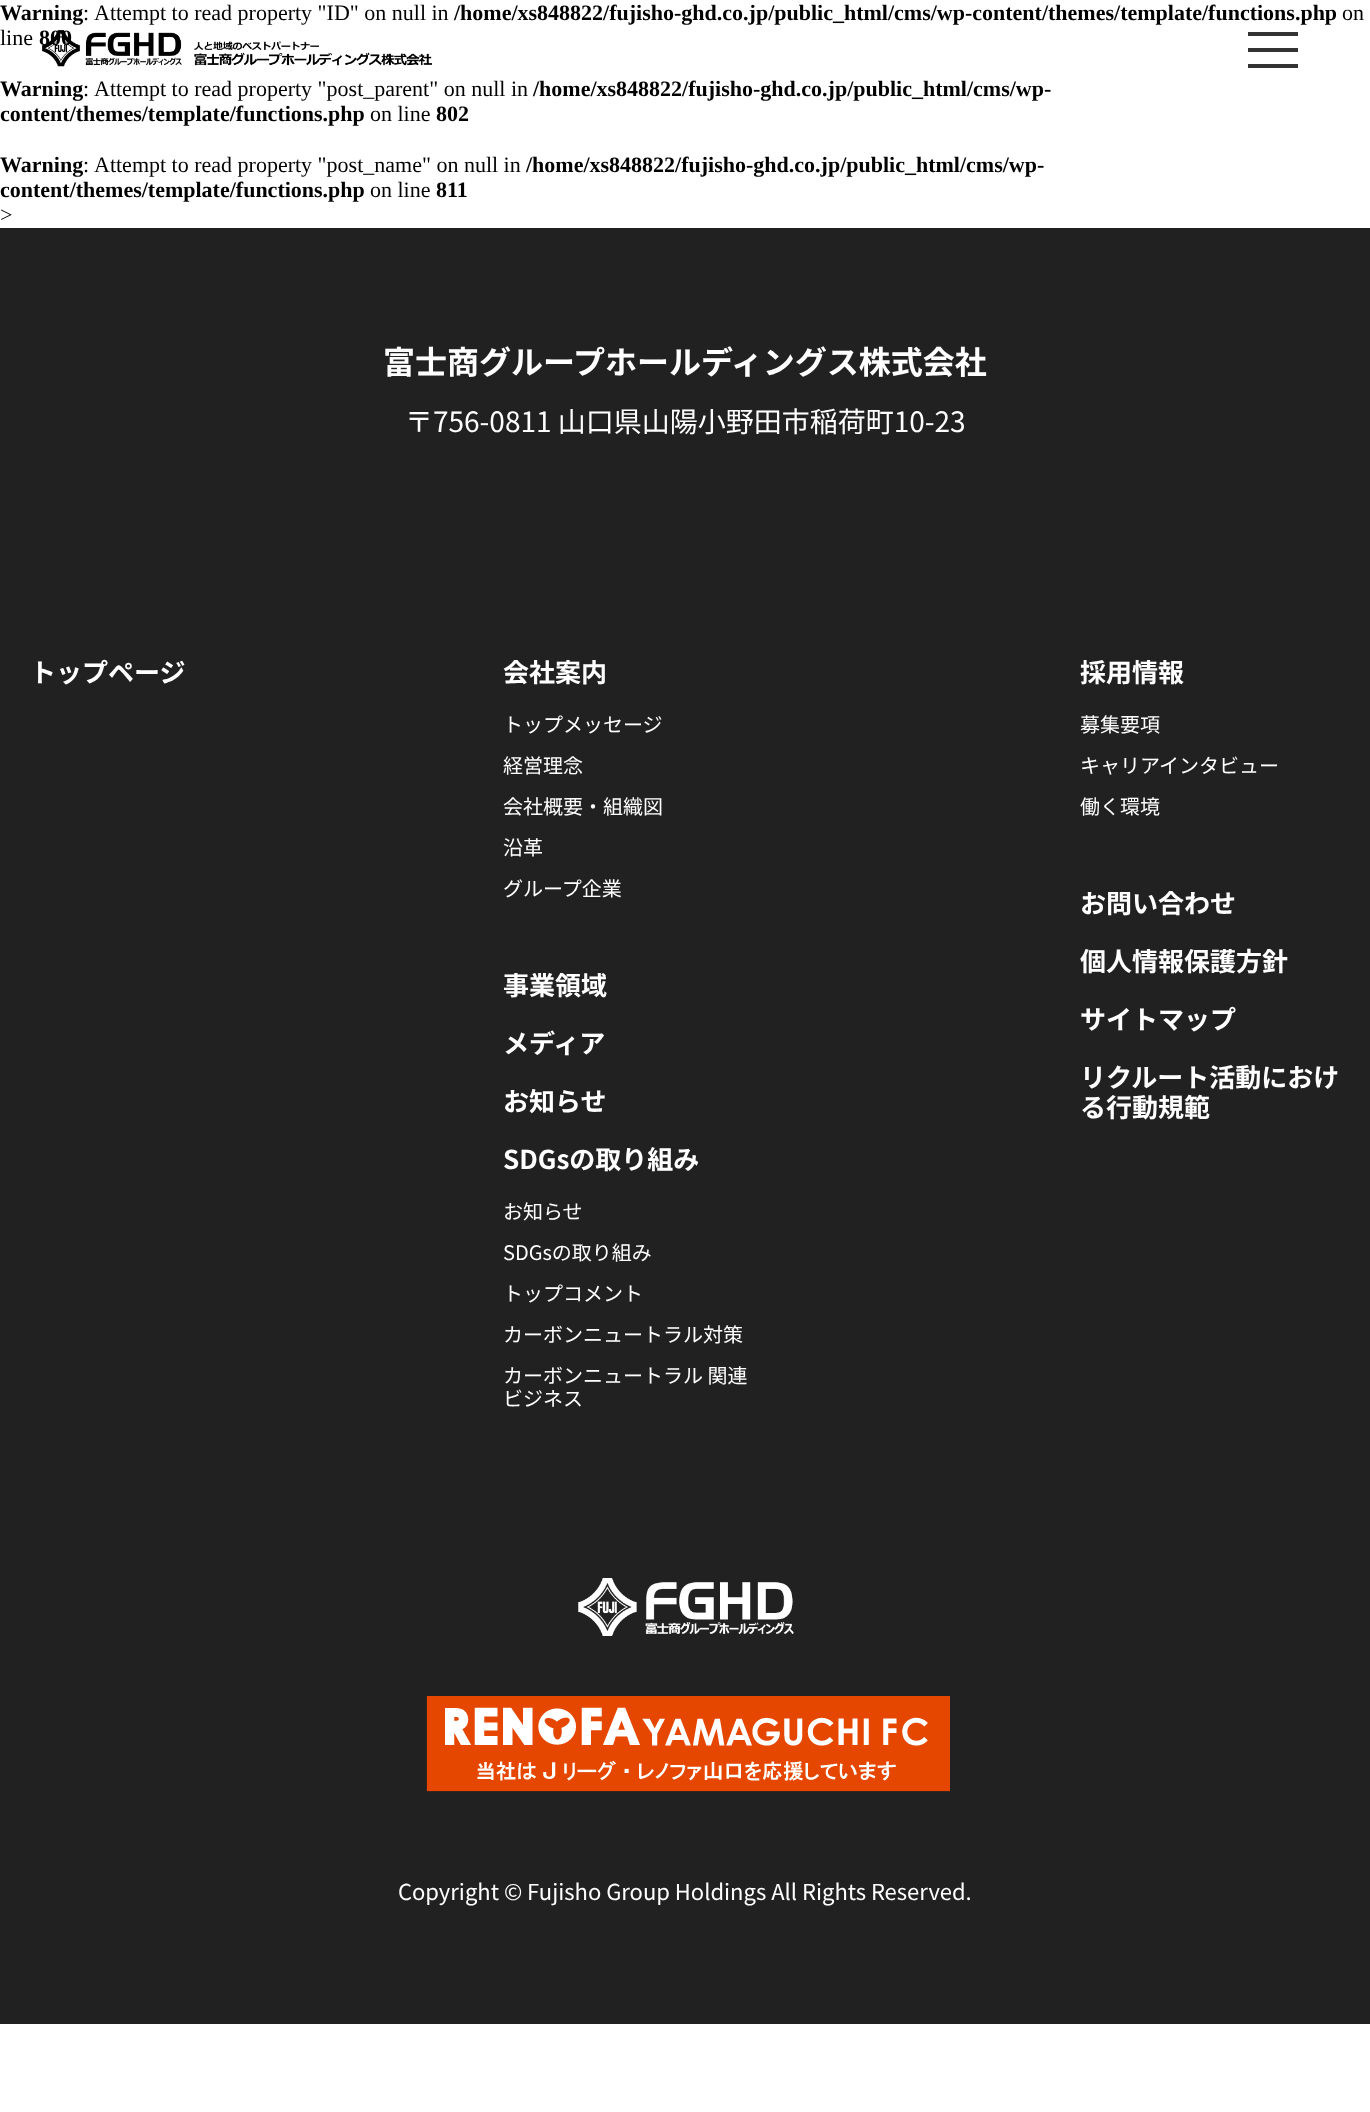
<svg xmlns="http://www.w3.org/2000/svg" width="1370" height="2112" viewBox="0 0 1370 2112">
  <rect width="100%" height="100%" fill="#fff"/>
  <path d="M1248 48h50v4H1248z" fill="#333"/>
  <path d="M1248 32h50v4H1248z" fill="#333"/>
  <path d="M1248 64h50v4H1248z" fill="#333"/>
  <path d="M0 228h1370v1796H0z" fill="#212121"/>
  <image x="578" y="1578" width="216" height="58" href="img/2.png"/>
  <image x="426" y="1696" width="524" height="96" href="img/3.png"/>
  <text x="0" y="20" font-family="Liberation Serif" font-size="22" font-weight="bold" fill="#000">Warning</text>
  <g font-family="Liberation Serif" font-size="22" fill="#000">
    <text x="83" y="20">:</text>
    <text x="94" y="20">Attempt to read property "ID" on null in</text>
  </g>
  <text x="454" y="20" font-family="Liberation Serif" font-size="22" font-weight="bold" fill="#000">/home/xs848822/fujisho-ghd.co.jp/public_html/cms/wp-content/themes/template/functions.php</text>
  <g font-family="Liberation Serif" font-size="22" fill="#000">
    <text x="1342" y="20">on</text>
    <text x="0" y="45">line</text>
  </g>
  <text x="39" y="45" font-family="Liberation Serif" font-size="22" font-weight="bold" fill="#000">800</text>
  <image x="41" y="29" width="391" height="38" href="img/1.png"/>
  <text x="0" y="96" font-family="Liberation Serif" font-size="22" font-weight="bold" fill="#000">Warning</text>
  <g font-family="Liberation Serif" font-size="22" fill="#000">
    <text x="83" y="96">:</text>
    <text x="94" y="96">Attempt to read property "post_parent" on null in</text>
  </g>
  <g font-family="Liberation Serif" font-size="22" font-weight="bold" fill="#000">
    <text x="533" y="96">/home/xs848822/fujisho-ghd.co.jp/public_html/cms/wp-</text>
    <text x="0" y="121">content/themes/template/functions.php</text>
  </g>
  <text x="370" y="121" font-family="Liberation Serif" font-size="22" fill="#000">on line</text>
  <g font-family="Liberation Serif" font-size="22" font-weight="bold" fill="#000">
    <text x="436" y="121">802</text>
    <text x="0" y="172">Warning</text>
  </g>
  <g font-family="Liberation Serif" font-size="22" fill="#000">
    <text x="83" y="172">:</text>
    <text x="94" y="172">Attempt to read property "post_name" on null in</text>
  </g>
  <g font-family="Liberation Serif" font-size="22" font-weight="bold" fill="#000">
    <text x="526" y="172">/home/xs848822/fujisho-ghd.co.jp/public_html/cms/wp-</text>
    <text x="0" y="197">content/themes/template/functions.php</text>
  </g>
  <text x="370" y="197" font-family="Liberation Serif" font-size="22" fill="#000">on line</text>
  <text x="436" y="197" font-family="Liberation Serif" font-size="22" font-weight="bold" fill="#000">811</text>
  <text x="0" y="222" font-family="Liberation Serif" font-size="22" fill="#000">&gt;</text>
  <text x="383" y="374" font-family="Noto Sans JP" font-size="32" font-weight="bold" fill="#fff">富士商グループホールディングス株式会社</text>
  <text x="405" y="432" font-family="Noto Sans JP" font-size="28" fill="#fff">〒756-0811 山口県山陽小野田市稲荷町10-23</text>
  <g font-family="Noto Sans JP" font-size="26" font-weight="bold" fill="#fff">
    <text x="30" y="682">トップページ</text>
    <text x="503" y="682">会社案内</text>
  </g>
  <g font-family="Noto Sans JP" font-size="20" fill="#fff">
    <text x="503" y="732">トップメッセージ</text>
    <text x="503" y="773">経営理念</text>
    <text x="503" y="814">会社概要・組織図</text>
    <text x="503" y="855">沿革</text>
    <text x="503" y="896">グループ企業</text>
  </g>
  <text x="1080" y="682" font-family="Noto Sans JP" font-size="26" font-weight="bold" fill="#fff">採用情報</text>
  <g font-family="Noto Sans JP" font-size="20" fill="#fff">
    <text x="1080" y="732">募集要項</text>
    <text x="1080" y="773">キャリアインタビュー</text>
    <text x="1080" y="814">働く環境</text>
  </g>
  <g font-family="Noto Sans JP" font-size="26" font-weight="bold" fill="#fff">
    <text x="1080" y="913">お問い合わせ</text>
    <text x="1080" y="971">個人情報保護方針</text>
    <text x="503" y="995">事業領域</text>
    <text x="1080" y="1029">サイトマップ</text>
    <text x="503" y="1053">メディア</text>
    <text x="503" y="1111">お知らせ</text>
    <text x="1080" y="1087">リクルート活動におけ</text>
    <text x="1080" y="1117">る行動規範</text>
    <text x="503" y="1169">SDGsの取り組み</text>
  </g>
  <g font-family="Noto Sans JP" font-size="20" fill="#fff">
    <text x="503" y="1219">お知らせ</text>
    <text x="503" y="1260">SDGsの取り組み</text>
    <text x="503" y="1301">トップコメント</text>
    <text x="503" y="1342">カーボンニュートラル対策</text>
    <text x="503" y="1383">カーボンニュートラル 関連</text>
    <text x="503" y="1406">ビジネス</text>
  </g>
  <text x="398" y="1900" font-family="Noto Sans JP" font-size="22" fill="#fff">Copyright © Fujisho Group Holdings All Rights Reserved.</text>
</svg>
